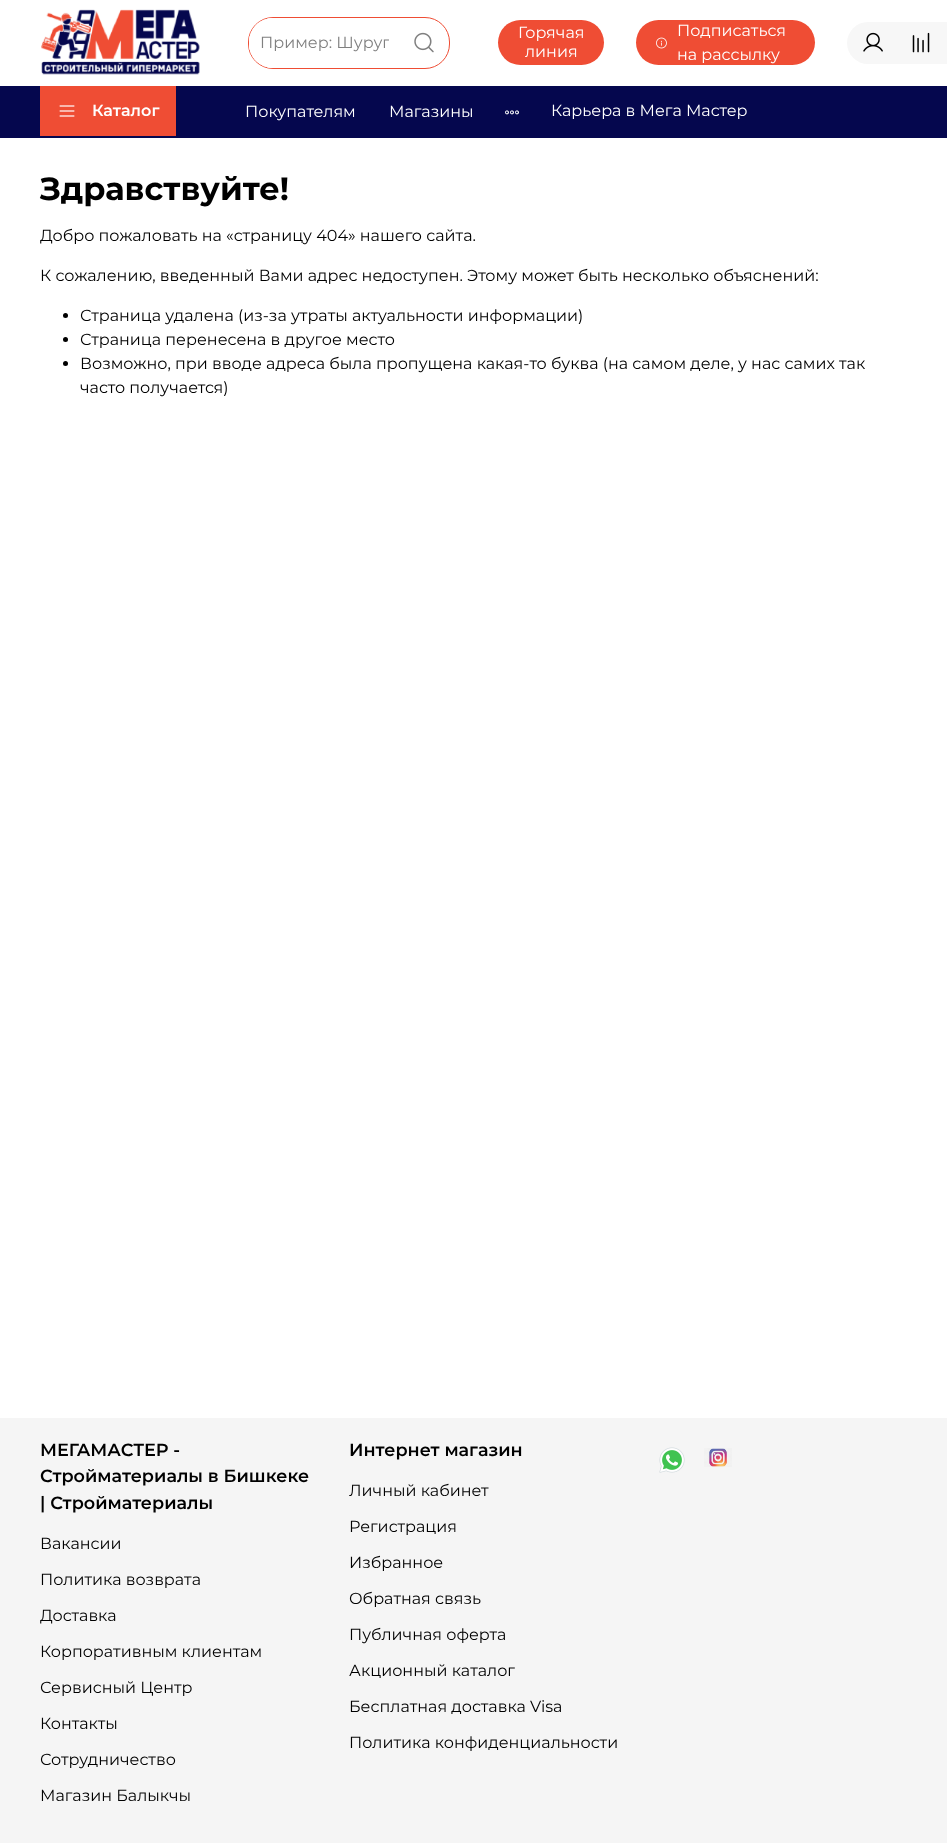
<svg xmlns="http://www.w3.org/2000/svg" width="947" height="1843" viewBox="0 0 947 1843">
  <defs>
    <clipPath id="clip1"><rect x="249" y="18" width="200" height="50" rx="24"/></clipPath>
    <clipPath id="clip2"><path d="M260 33h129v19H260z"/></clipPath>
  </defs>
  <rect width="100%" height="100%" fill="#fff"/>
  <image x="41" y="9" width="159" height="66" href="img/1.png"/>
  <rect x="248.5" y="17.5" width="201" height="51" rx="24.5" fill="none" stroke="#ef4d34"/>
  <path d="M273 18H399V68H273C259.5 68 249 57.5 249 44V42C249 28.5 259.5 18 273 18Z" fill="#fff"/>
  <g clip-path="url(#clip1)">
    <path d="M266 18h133v1H266z" fill="#fff"/>
    <path d="M266 67h133v1H266z" fill="#fff"/>
    <path d="M249 35h1v16H249z" fill="#fff"/>
  </g>
  <image x="414" y="32" width="20" height="21" href="img/2.png"/>
  <rect x="498" y="20" width="106" height="45" rx="22.5" fill="#ef4d34"/>
  <rect x="636" y="20" width="179" height="45" rx="22.5" fill="#ef4d34"/>
  <image x="656" y="37" width="11" height="12" href="img/3.png"/>
  <rect x="847" y="22" width="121" height="42" rx="21" fill="#f7f7f7"/>
  <image x="863" y="32" width="20" height="20" href="img/4.png"/>
  <image x="912" y="32" width="18" height="21" href="img/5.png"/>
  <path d="M0 86h947v52H0z" fill="#05074e"/>
  <path d="M40 86h136v50H40z" fill="#ef4d34"/>
  <image x="59" y="105" width="16" height="12" href="img/6.png"/>
  <image x="505" y="110" width="14" height="5" href="img/7.png"/>
  <circle cx="65.5" cy="315.5" r="2.5" fill="#000"/>
  <circle cx="65.5" cy="339.5" r="2.5" fill="#000"/>
  <circle cx="65.5" cy="363.5" r="2.5" fill="#000"/>
  <path d="M0 1418h947v425H0z" fill="#f5f5f5"/>
  <image x="659" y="1447" width="26" height="26" href="img/8.png"/>
  <image x="704" y="1448" width="28" height="19" href="img/9.png"/>
  <g clip-path="url(#clip2)">
    <text x="260" y="48" font-family="Montserrat" font-size="16" fill="#808080">Пример: Шуруп</text>
  </g>
  <g font-family="Montserrat" font-size="16" fill="#fff">
    <text x="518" y="38">Горячая</text>
    <text x="525" y="57">линия</text>
    <text x="677" y="36">Подписаться</text>
    <text x="677" y="60">на рассылку</text>
  </g>
  <text x="92" y="116" font-family="Montserrat" font-size="16" font-weight="600" fill="#fff">Каталог</text>
  <g font-family="Montserrat" font-size="16" fill="#fff">
    <text x="245" y="117">Покупателям</text>
    <text x="389" y="117">Магазины</text>
    <text x="551" y="116">Карьера в Мега Мастер</text>
  </g>
  <text x="40" y="200" font-family="Montserrat" font-size="32" font-weight="bold" fill="#000">Здравствуйте!</text>
  <g font-family="Montserrat" font-size="16" fill="#000">
    <text x="40" y="241">Добро пожаловать на «страницу 404» нашего сайта.</text>
    <text x="40" y="281">К сожалению, введенный Вами адрес недоступен. Этому может быть несколько объяснений:</text>
    <text x="80" y="321">Страница удалена (из-за утраты актуальности информации)</text>
    <text x="80" y="345">Страница перенесена в другое место</text>
    <text x="80" y="369">Возможно, при вводе адреса была пропущена какая-то буква (на самом деле, у нас самих так</text>
    <text x="80" y="393">часто получается)</text>
  </g>
  <g font-family="Montserrat" font-size="17.6" font-weight="600" fill="#000">
    <text x="40" y="1456">МЕГАМАСТЕР -</text>
    <text x="40" y="1482">Стройматериалы в Бишкеке</text>
    <text x="40" y="1509">| Стройматериалы</text>
  </g>
  <g font-family="Montserrat" font-size="16" fill="#000">
    <text x="40" y="1549">Вакансии</text>
    <text x="40" y="1585">Политика возврата</text>
    <text x="40" y="1621">Доставка</text>
    <text x="40" y="1657">Корпоративным клиентам</text>
    <text x="40" y="1693">Сервисный Центр</text>
    <text x="40" y="1729">Контакты</text>
    <text x="40" y="1765">Сотрудничество</text>
    <text x="40" y="1801">Магазин Балыкчы</text>
  </g>
  <text x="349" y="1456" font-family="Montserrat" font-size="17.6" font-weight="600" fill="#000">Интернет магазин</text>
  <g font-family="Montserrat" font-size="16" fill="#000">
    <text x="349" y="1496">Личный кабинет</text>
    <text x="349" y="1532">Регистрация</text>
    <text x="349" y="1568">Избранное</text>
    <text x="349" y="1604">Обратная связь</text>
    <text x="349" y="1640">Публичная оферта</text>
    <text x="349" y="1676">Акционный каталог</text>
    <text x="349" y="1712">Бесплатная доставка Visa</text>
    <text x="349" y="1748">Политика конфиденциальности</text>
  </g>
</svg>
